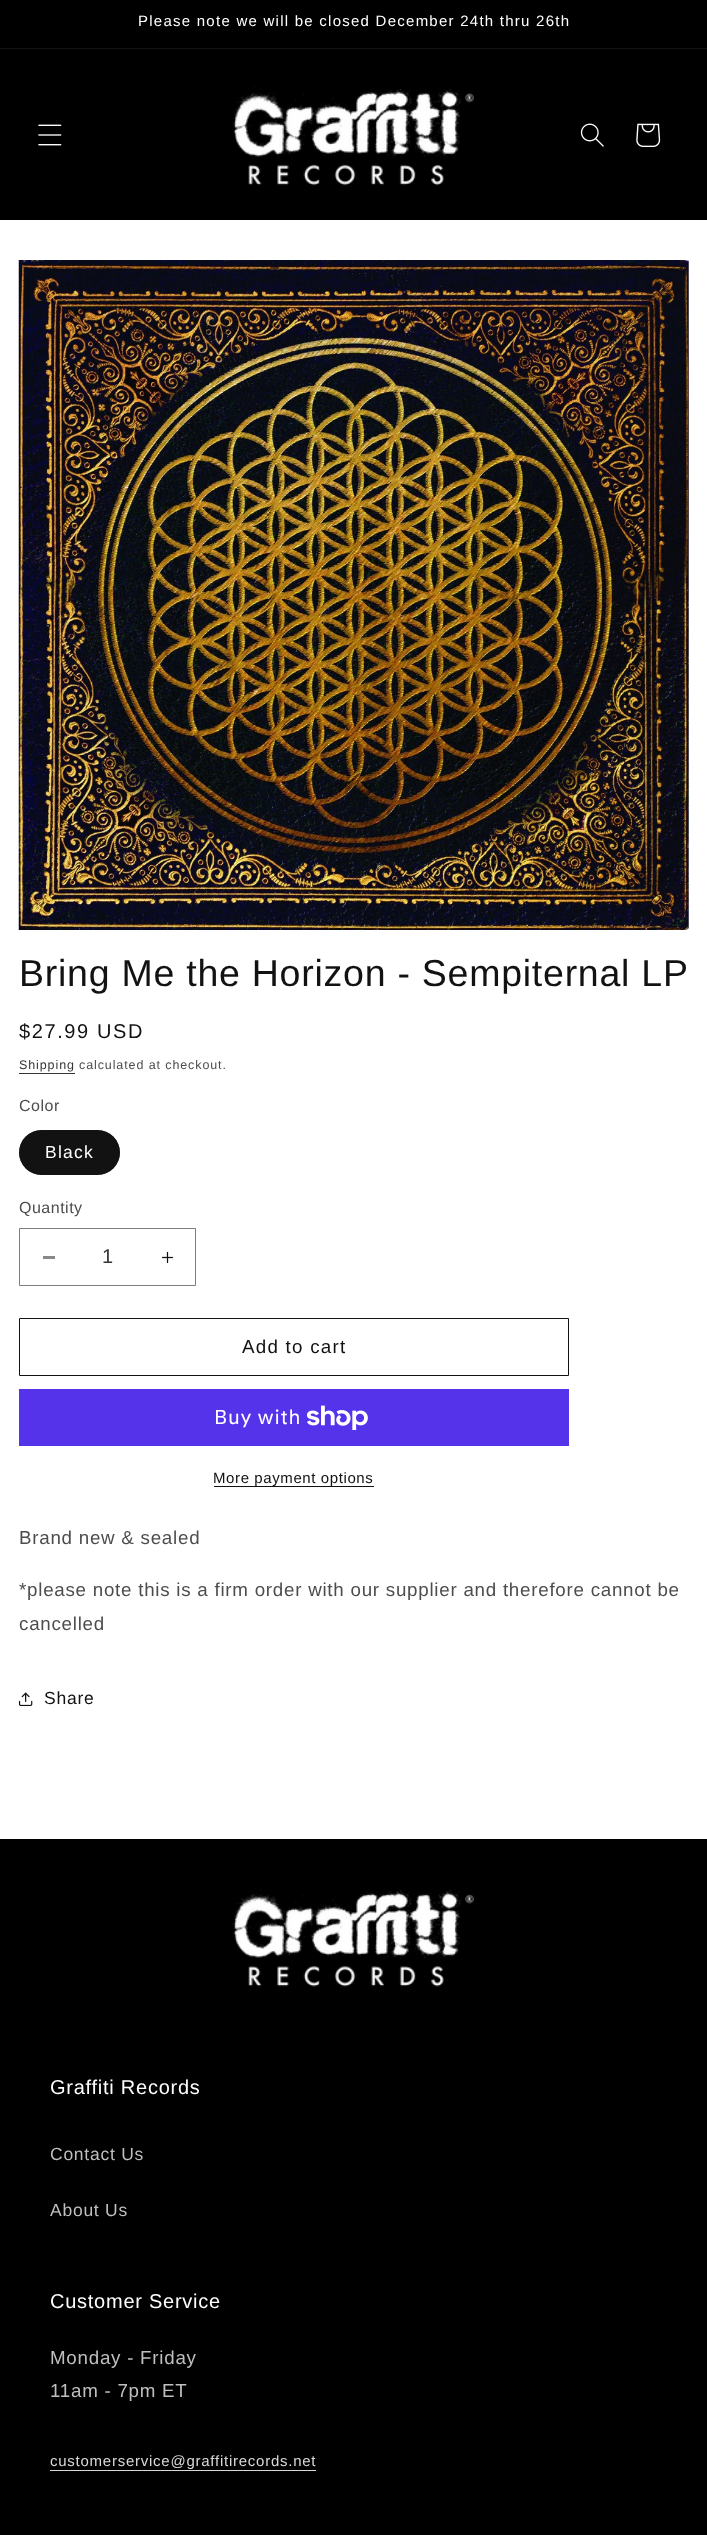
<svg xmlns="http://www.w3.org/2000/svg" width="707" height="2535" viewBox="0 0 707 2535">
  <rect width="100%" height="100%" fill="#fff"/>
  <path d="M0 0h707v48H0z" fill="#000"/>
  <path d="M0 48h707v1H0z" fill="#141414"/>
  <path d="M0 49h707v171H0z" fill="#000"/>
  <image x="38" y="124" width="24" height="22" href="img/1.png"/>
  <image x="232" y="85" width="242" height="101" href="img/2.png"/>
  <image x="580" y="123" width="24" height="24" href="img/3.png"/>
  <image x="636" y="123" width="25" height="24" href="img/4.png"/>
  <image x="18" y="260" width="671" height="670" href="img/5.png"/>
  <path d="M19 1073h56v1H19z" fill="#363636"/>
  <rect x="19" y="1130" width="101" height="45" rx="22.5" fill="#121212"/>
  <rect x="19.5" y="1130.5" width="100" height="44" rx="22" fill="none" stroke="#1212128c"/>
  <path d="M43 1256h12v3H43z" fill="#898989"/>
  <image x="161" y="1251" width="13" height="13" href="img/6.png"/>
  <path d="M19.5 1228.5h176v57H19.5z" fill="none" stroke="#7d7d7d"/>
  <path d="M19.5 1318.5h549v57H19.5z" fill="none" stroke="#121212"/>
  <path d="M19 1389h550v57H19z" fill="#5433eb"/>
  <image x="306" y="1405" width="62" height="25" href="img/7.png"/>
  <path d="M214 1486h160v1H214z" fill="#121212"/>
  <image x="18" y="1692" width="15" height="14" href="img/8.png"/>
  <path d="M0 1839h707v696H0z" fill="#000"/>
  <image x="232" y="1887" width="242" height="100" href="img/9.png"/>
  <path d="M50 2470h266v1H50z" fill="#d9d9d9"/>
  <text x="138" y="26" font-family="Liberation Sans" font-size="15" letter-spacing="1.25" fill="#fff">Please note we will be closed December 24th thru 26th</text>
  <text x="19" y="986" font-family="Liberation Sans" font-size="37.5" letter-spacing="0.75" fill="#121212">Bring Me the Horizon - Sempiternal LP</text>
  <text x="19" y="1038" font-family="Liberation Sans" font-size="20" letter-spacing="1.6" fill="#121212">$27.99 USD</text>
  <text x="19" y="1069" font-family="Liberation Sans" font-size="12.5" letter-spacing="0.9" fill="#363636">Shipping</text>
  <text x="79" y="1069" font-family="Liberation Sans" font-size="12.5" letter-spacing="0.9" fill="#4d4d4d">calculated at checkout.</text>
  <text x="19" y="1111" font-family="Liberation Sans" font-size="16" letter-spacing="0.5" fill="#4d4d4d">Color</text>
  <text x="45" y="1158" font-family="Liberation Sans" font-size="17.5" letter-spacing="1.25" fill="#fff">Black</text>
  <text x="19" y="1213" font-family="Liberation Sans" font-size="16" letter-spacing="0.5" fill="#4d4d4d">Quantity</text>
  <text x="102" y="1263" font-family="Liberation Sans" font-size="20" fill="#363636">1</text>
  <text x="242" y="1353" font-family="Liberation Sans" font-size="18.75" letter-spacing="1.25" fill="#121212">Add to cart</text>
  <text x="214" y="1424" font-family="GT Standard" font-size="20" letter-spacing="0.75" fill="#fff">Buy with</text>
  <text x="213" y="1483" font-family="Liberation Sans" font-size="15" letter-spacing="0.6" fill="#121212">More payment options</text>
  <g font-family="Liberation Sans" font-size="18.75" letter-spacing="0.75" fill="#4d4d4d">
    <text x="19" y="1544">Brand new &amp; sealed</text>
    <text x="19" y="1596">*please note this is a firm order with our supplier and therefore cannot be</text>
    <text x="19" y="1630">cancelled</text>
  </g>
  <text x="44" y="1704" font-family="Liberation Sans" font-size="17.5" letter-spacing="0.75" fill="#121212">Share</text>
  <text x="50" y="2094" font-family="Liberation Sans" font-size="20" letter-spacing="0.75" fill="#fff">Graffiti Records</text>
  <g font-family="Liberation Sans" font-size="17.5" letter-spacing="0.75" fill="#bfbfbf">
    <text x="50" y="2160">Contact Us</text>
    <text x="50" y="2216">About Us</text>
  </g>
  <text x="50" y="2308" font-family="Liberation Sans" font-size="20" letter-spacing="0.75" fill="#fff">Customer Service</text>
  <g font-family="Liberation Sans" font-size="18.75" letter-spacing="0.75" fill="#bfbfbf">
    <text x="50" y="2364">Monday - Friday</text>
    <text x="50" y="2397">11am - 7pm ET</text>
  </g>
  <text x="50" y="2466" font-family="Liberation Sans" font-size="15" letter-spacing="0.75" fill="#d9d9d9">customerservice@graffitirecords.net</text>
</svg>
